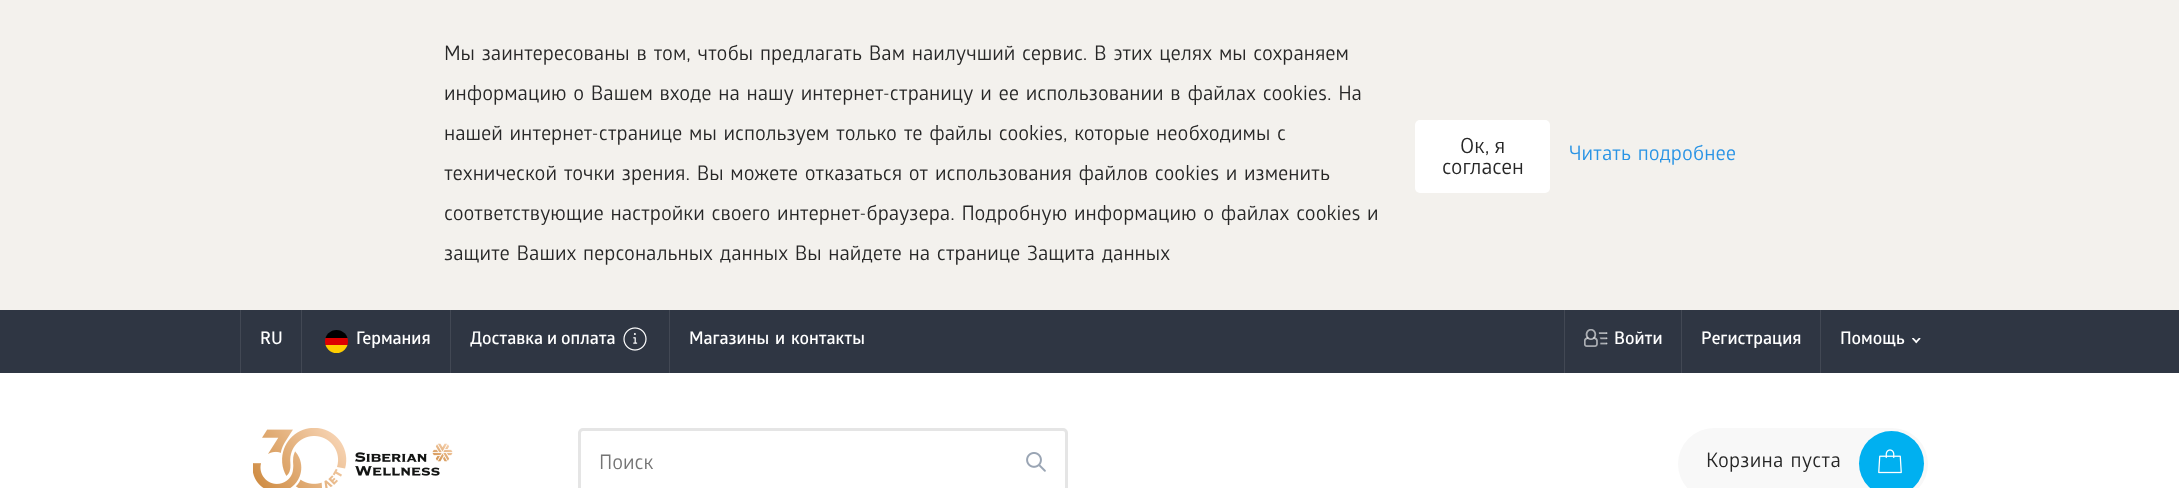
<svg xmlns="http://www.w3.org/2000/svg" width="2179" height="488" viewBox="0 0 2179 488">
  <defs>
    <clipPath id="clip1"><rect x="325" y="330" width="23" height="23" rx="11.5"/></clipPath>
  </defs>
  <rect width="100%" height="100%" fill="#fff"/>
  <path d="M0 0h2179v310H0z" fill="#f3f1ed"/>
  <rect x="1415" y="120" width="135" height="73" rx="5" fill="#fff"/>
  <path d="M0 310h2179v63H0z" fill="#2f3643"/>
  <path d="M240 310h1v63H240z" fill="#424854"/>
  <path d="M301 310h1v63H301z" fill="#424854"/>
  <g clip-path="url(#clip1)">
    <path d="M325 345h23v8H325z" fill="#ffce00"/>
    <path d="M325 330h23v8H325z" fill="#000"/>
    <path d="M325 338h23v7H325z" fill="#d00"/>
  </g>
  <path d="M450 310h1v63H450z" fill="#424854"/>
  <image x="623" y="327" width="24" height="24" href="img/1.png"/>
  <path d="M669 310h1v63H669z" fill="#424854"/>
  <path d="M1564 310h1v63H1564z" fill="#424854"/>
  <image x="1584" y="329" width="24" height="18" href="img/2.png"/>
  <path d="M1681 310h1v63H1681z" fill="#424854"/>
  <path d="M1820 310h1v63H1820z" fill="#424854"/>
  <image x="1912" y="338" width="9" height="6" href="img/3.png"/>
  <image x="253" y="428" width="200" height="60" href="img/4.png"/>
  <rect x="579.5" y="429.5" width="487" height="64" rx="3.5" fill="none" stroke="#e5e5e5" stroke-width="3"/>
  <image x="1026" y="452" width="20" height="20" href="img/5.png"/>
  <rect x="1678" y="428" width="250" height="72" rx="36" fill="#f8f8f8"/>
  <circle cx="1891.5" cy="463.5" r="32.5" fill="#00b0f0"/>
  <image x="1878" y="449" width="24" height="25" href="img/6.png"/>
  <g font-family="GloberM" font-size="20" fill="#272727">
    <text x="444" y="60" word-spacing="2">Мы заинтересованы в том, чтобы предлагать Вам наилучший сервис. В этих целях мы сохраняем</text>
    <text x="444" y="100" word-spacing="2">информацию о Вашем входе на нашу интернет-страницу и ее использовании в файлах cookies. На</text>
    <text x="444" y="140" word-spacing="2">нашей интернет-странице мы используем только те файлы cookies, которые необходимы с</text>
    <text x="444" y="180" word-spacing="2">технической точки зрения. Вы можете отказаться от использования файлов cookies и изменить</text>
    <text x="444" y="220" word-spacing="2">соответствующие настройки своего интернет-браузера. Подробную информацию о файлах cookies и</text>
    <text x="444" y="260" word-spacing="2">защите Ваших персональных данных Вы найдете на странице Защита данных</text>
  </g>
  <g font-family="GloberM" font-size="21" fill="#272727">
    <text x="1460" y="153">Ок, я</text>
    <text x="1442" y="174">согласен</text>
  </g>
  <text x="1569" y="160" word-spacing="2" font-family="GloberM" font-size="20" fill="#2a94e5">Читать подробнее</text>
  <g font-family="GloberM" font-size="17.5" font-weight="600" fill="#fff">
    <text x="260" y="344">RU</text>
    <text x="356" y="344">Германия</text>
    <text x="470" y="344">Доставка и оплата</text>
    <text x="689" y="344" word-spacing="2">Магазины и контакты</text>
    <text x="1614" y="344">Войти</text>
    <text x="1701" y="344">Регистрация</text>
    <text x="1840" y="344">Помощь</text>
  </g>
  <text x="599" y="469" font-family="GloberM" font-size="20" fill="#757575">Поиск</text>
  <text x="1706" y="467" word-spacing="2" font-family="GloberM" font-size="20" letter-spacing="0.25" fill="#272727">Корзина пуста</text>
</svg>
